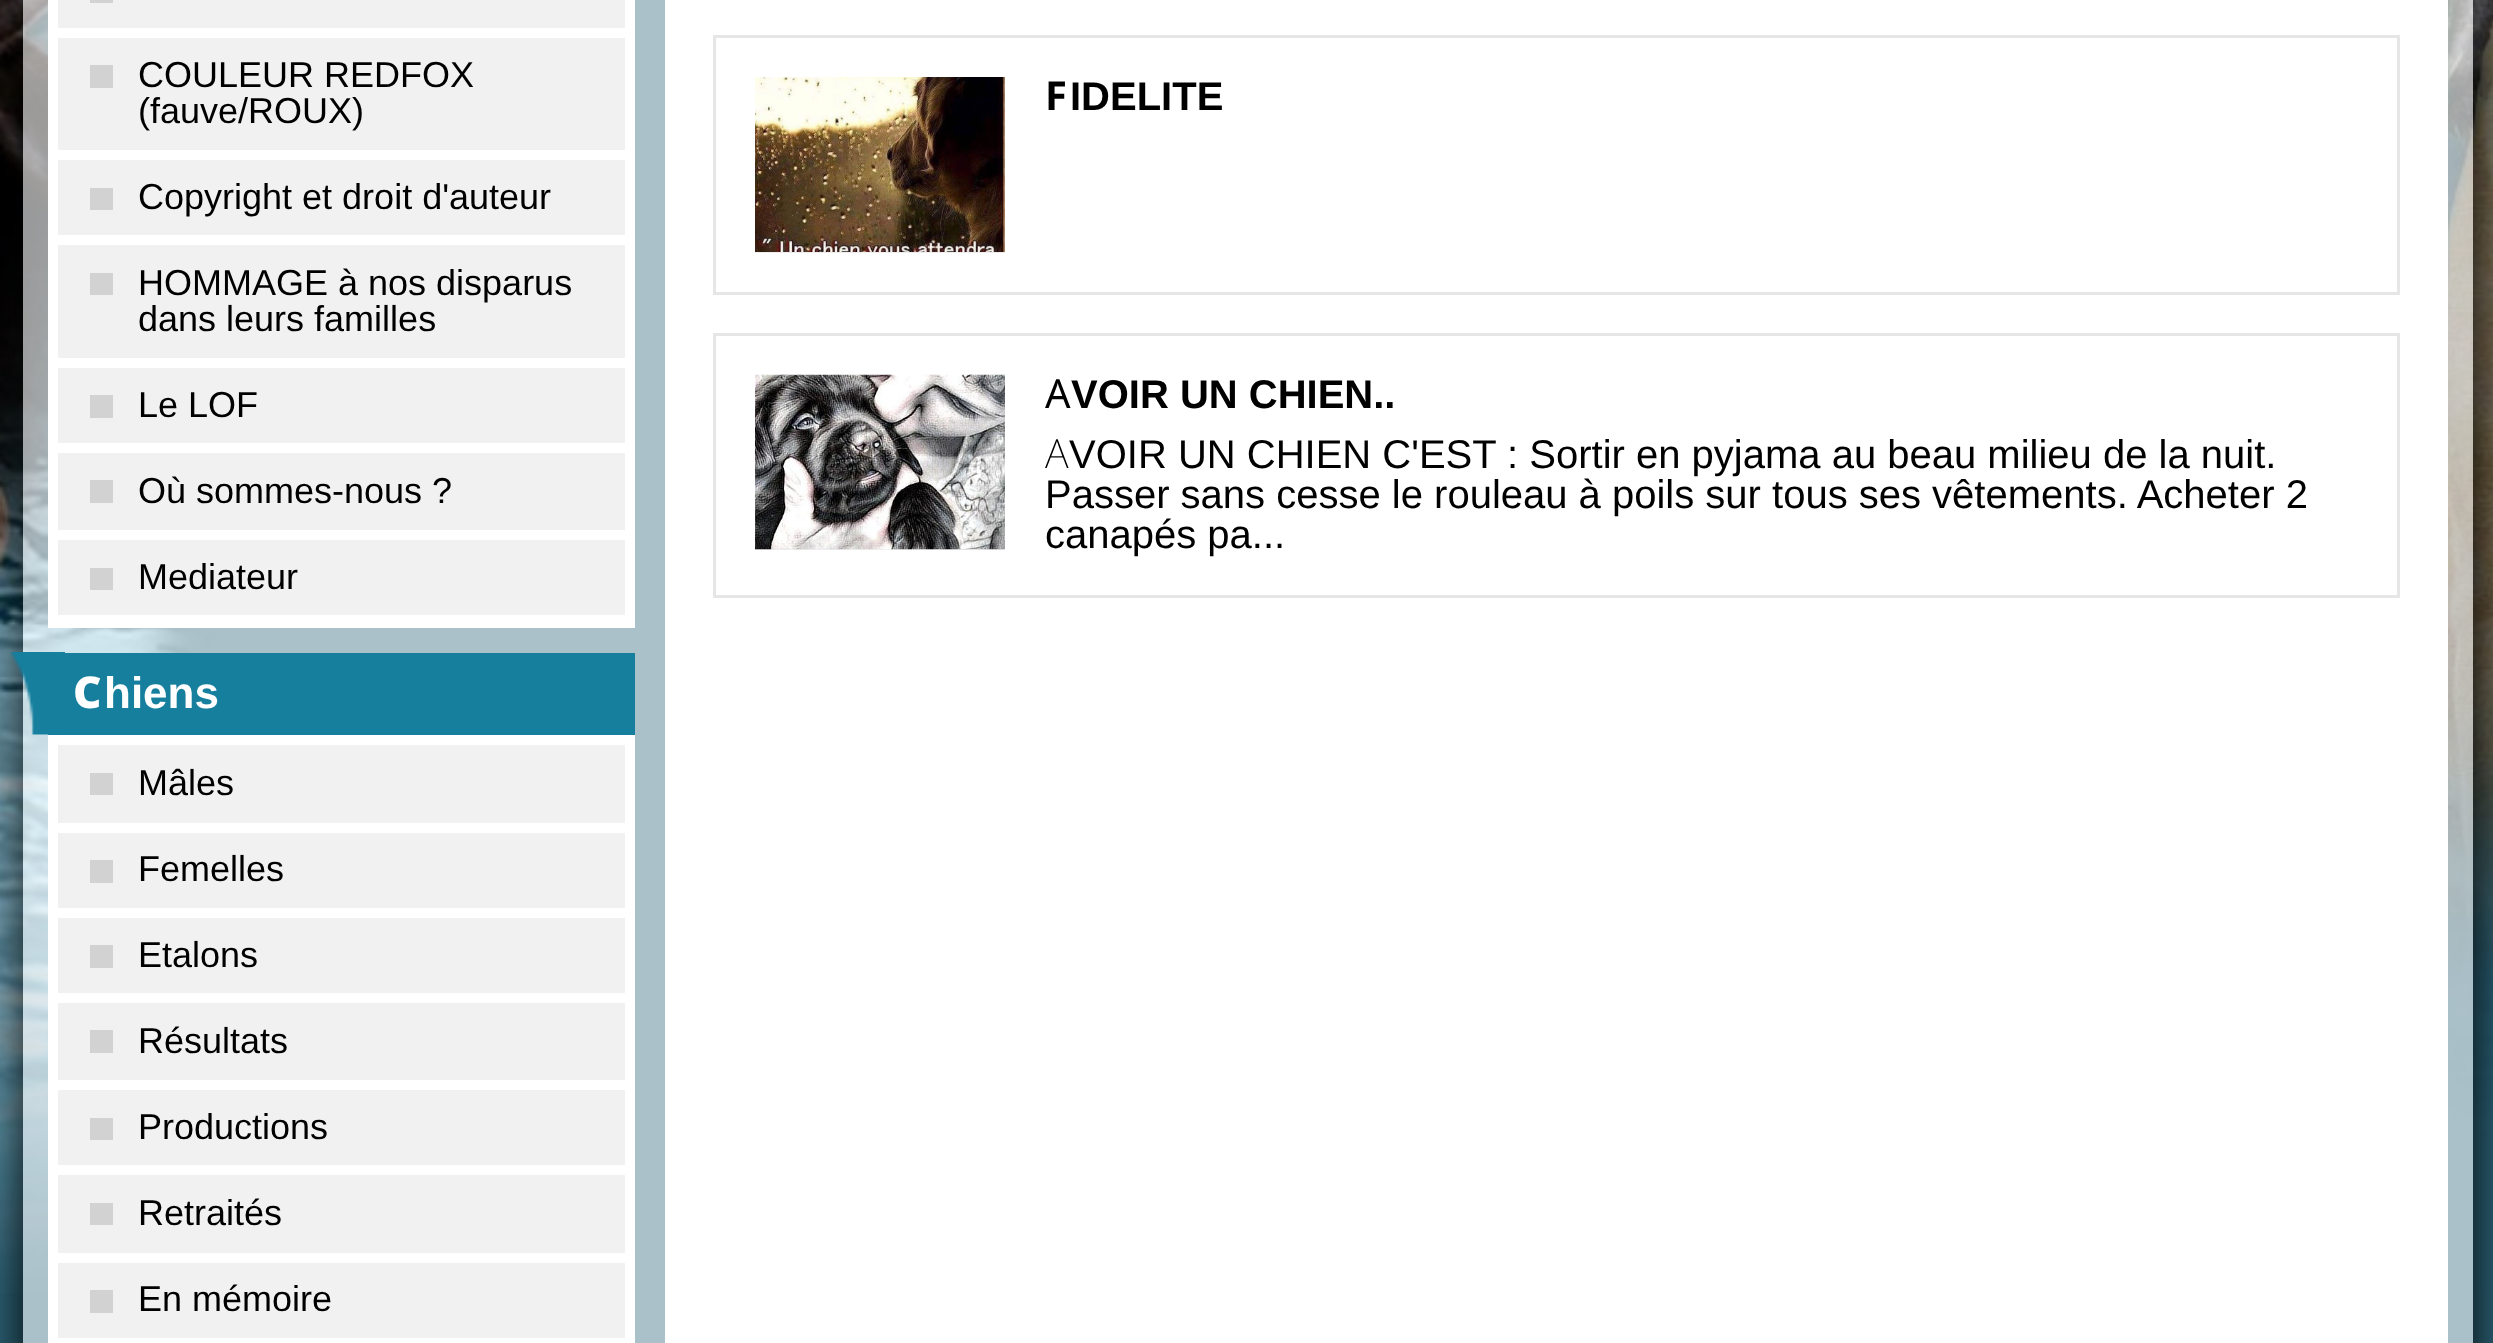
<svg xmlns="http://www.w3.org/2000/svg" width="2493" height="1343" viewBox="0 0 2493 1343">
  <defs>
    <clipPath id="clip1"><path d="M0 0H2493V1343H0ZM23-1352H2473V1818H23Z" clip-rule="evenodd"/></clipPath>
  </defs>
  <rect width="100%" height="100%" fill="#2d6478"/>
  <image x="0" y="0" width="2493" height="1293" href="img/1.png"/>
  <g clip-path="url(#clip1)">
    <path d="M23 -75h2450v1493H23z" fill="#000" filter="blur(25px)"/>
  </g>
  <path d="M23 0h2450v1343H23z" fill="#ffffff99"/>
  <path d="M48 0h587v628H48z" fill="#fff"/>
  <path d="M58 0h567v28H58z" fill="#f1f1f1"/>
  <path d="M90 0h23v3H90z" fill="#d3d2d2"/>
  <path d="M58 38h567v112H58z" fill="#f1f1f1"/>
  <path d="M90 65h23v23H90z" fill="#d3d2d2"/>
  <path d="M58 160h567v75H58z" fill="#f1f1f1"/>
  <path d="M90 188h23v22H90z" fill="#d3d2d2"/>
  <path d="M58 245h567v113H58z" fill="#f1f1f1"/>
  <path d="M90 273h23v22H90z" fill="#d3d2d2"/>
  <path d="M58 368h567v75H58z" fill="#f1f1f1"/>
  <path d="M90 395h23v23H90z" fill="#d3d2d2"/>
  <path d="M58 453h567v77H58z" fill="#f1f1f1"/>
  <path d="M90 480h23v23H90z" fill="#d3d2d2"/>
  <path d="M58 540h567v75H58z" fill="#f1f1f1"/>
  <path d="M90 568h23v22H90z" fill="#d3d2d2"/>
  <path d="M48 653h587v82H48z" fill="#167f9d"/>
  <image x="10" y="652" width="55" height="83" href="img/2.png"/>
  <path d="M48 735h587v608H48z" fill="#fff"/>
  <path d="M58 745h567v78H58z" fill="#f1f1f1"/>
  <path d="M90 773h23v22H90z" fill="#d3d2d2"/>
  <path d="M58 833h567v75H58z" fill="#f1f1f1"/>
  <path d="M90 860h23v23H90z" fill="#d3d2d2"/>
  <path d="M58 918h567v75H58z" fill="#f1f1f1"/>
  <path d="M90 945h23v23H90z" fill="#d3d2d2"/>
  <path d="M58 1003h567v77H58z" fill="#f1f1f1"/>
  <path d="M90 1030h23v23H90z" fill="#d3d2d2"/>
  <path d="M58 1090h567v75H58z" fill="#f1f1f1"/>
  <path d="M90 1118h23v22H90z" fill="#d3d2d2"/>
  <path d="M58 1175h567v78H58z" fill="#f1f1f1"/>
  <path d="M90 1203h23v22H90z" fill="#d3d2d2"/>
  <path d="M58 1263h567v75H58z" fill="#f1f1f1"/>
  <path d="M90 1290h23v23H90z" fill="#d3d2d2"/>
  <path d="M665 0h1783v1343H665z" fill="#fff"/>
  <path d="M714.5 36.5h1684v257H714.5z" fill="none" stroke="#e6e6e6" stroke-width="3"/>
  <path d="M755 252h250v1H755z" fill="#eee"/>
  <image x="755" y="77" width="250" height="175" href="img/3.png"/>
  <path d="M714.5 334.5h1684v262H714.5z" fill="none" stroke="#e6e6e6" stroke-width="3"/>
  <path d="M755 549h250v1H755z" fill="#eee"/>
  <image x="755" y="374" width="250" height="176" href="img/4.png"/>
  <g font-family="Liberation Sans" font-size="36" fill="#000">
    <text x="138" y="87">COULEUR REDFOX</text>
    <text x="138" y="123">(fauve/ROUX)</text>
    <text x="138" y="209">Copyright et droit d'auteur</text>
    <text x="138" y="295">HOMMAGE à nos disparus</text>
    <text x="138" y="331">dans leurs familles</text>
    <text x="138" y="417">Le LOF</text>
    <text x="138" y="503">Où sommes-nous ?</text>
    <text x="138" y="589">Mediateur</text>
  </g>
  <text x="73" y="708" font-family="Noto Sans" font-size="44" font-weight="900" fill="#fff">C</text>
  <text x="104" y="708" font-family="Liberation Sans" font-size="44" font-weight="bold" fill="#fff">hiens</text>
  <g font-family="Liberation Sans" font-size="36" fill="#000">
    <text x="138" y="795">Mâles</text>
    <text x="138" y="881">Femelles</text>
    <text x="138" y="967">Etalons</text>
    <text x="138" y="1053">Résultats</text>
    <text x="138" y="1139">Productions</text>
    <text x="138" y="1225">Retraités</text>
    <text x="138" y="1311">En mémoire</text>
  </g>
  <text x="1045" y="110" font-family="Noto Sans" font-size="40" font-weight="bold" fill="#000">F</text>
  <text x="1070" y="110" font-family="Liberation Sans" font-size="40" font-weight="bold" fill="#000">IDELITE</text>
  <text x="1045" y="408" font-family="Noto Sans" font-size="40" fill="#000">A</text>
  <text x="1071" y="408" font-family="Liberation Sans" font-size="40" font-weight="bold" fill="#000">VOIR UN CHIEN..</text>
  <text x="1045" y="468" font-family="Noto Sans" font-size="40" font-weight="200" fill="#000">A</text>
  <g font-family="Liberation Sans" font-size="40" fill="#000">
    <text x="1069" y="468">VOIR UN CHIEN C'EST : Sortir en pyjama au beau milieu de la nuit.</text>
    <text x="1045" y="508">Passer sans cesse le rouleau à poils sur tous ses vêtements. Acheter 2</text>
    <text x="1045" y="548">canapés pa...</text>
  </g>
</svg>
